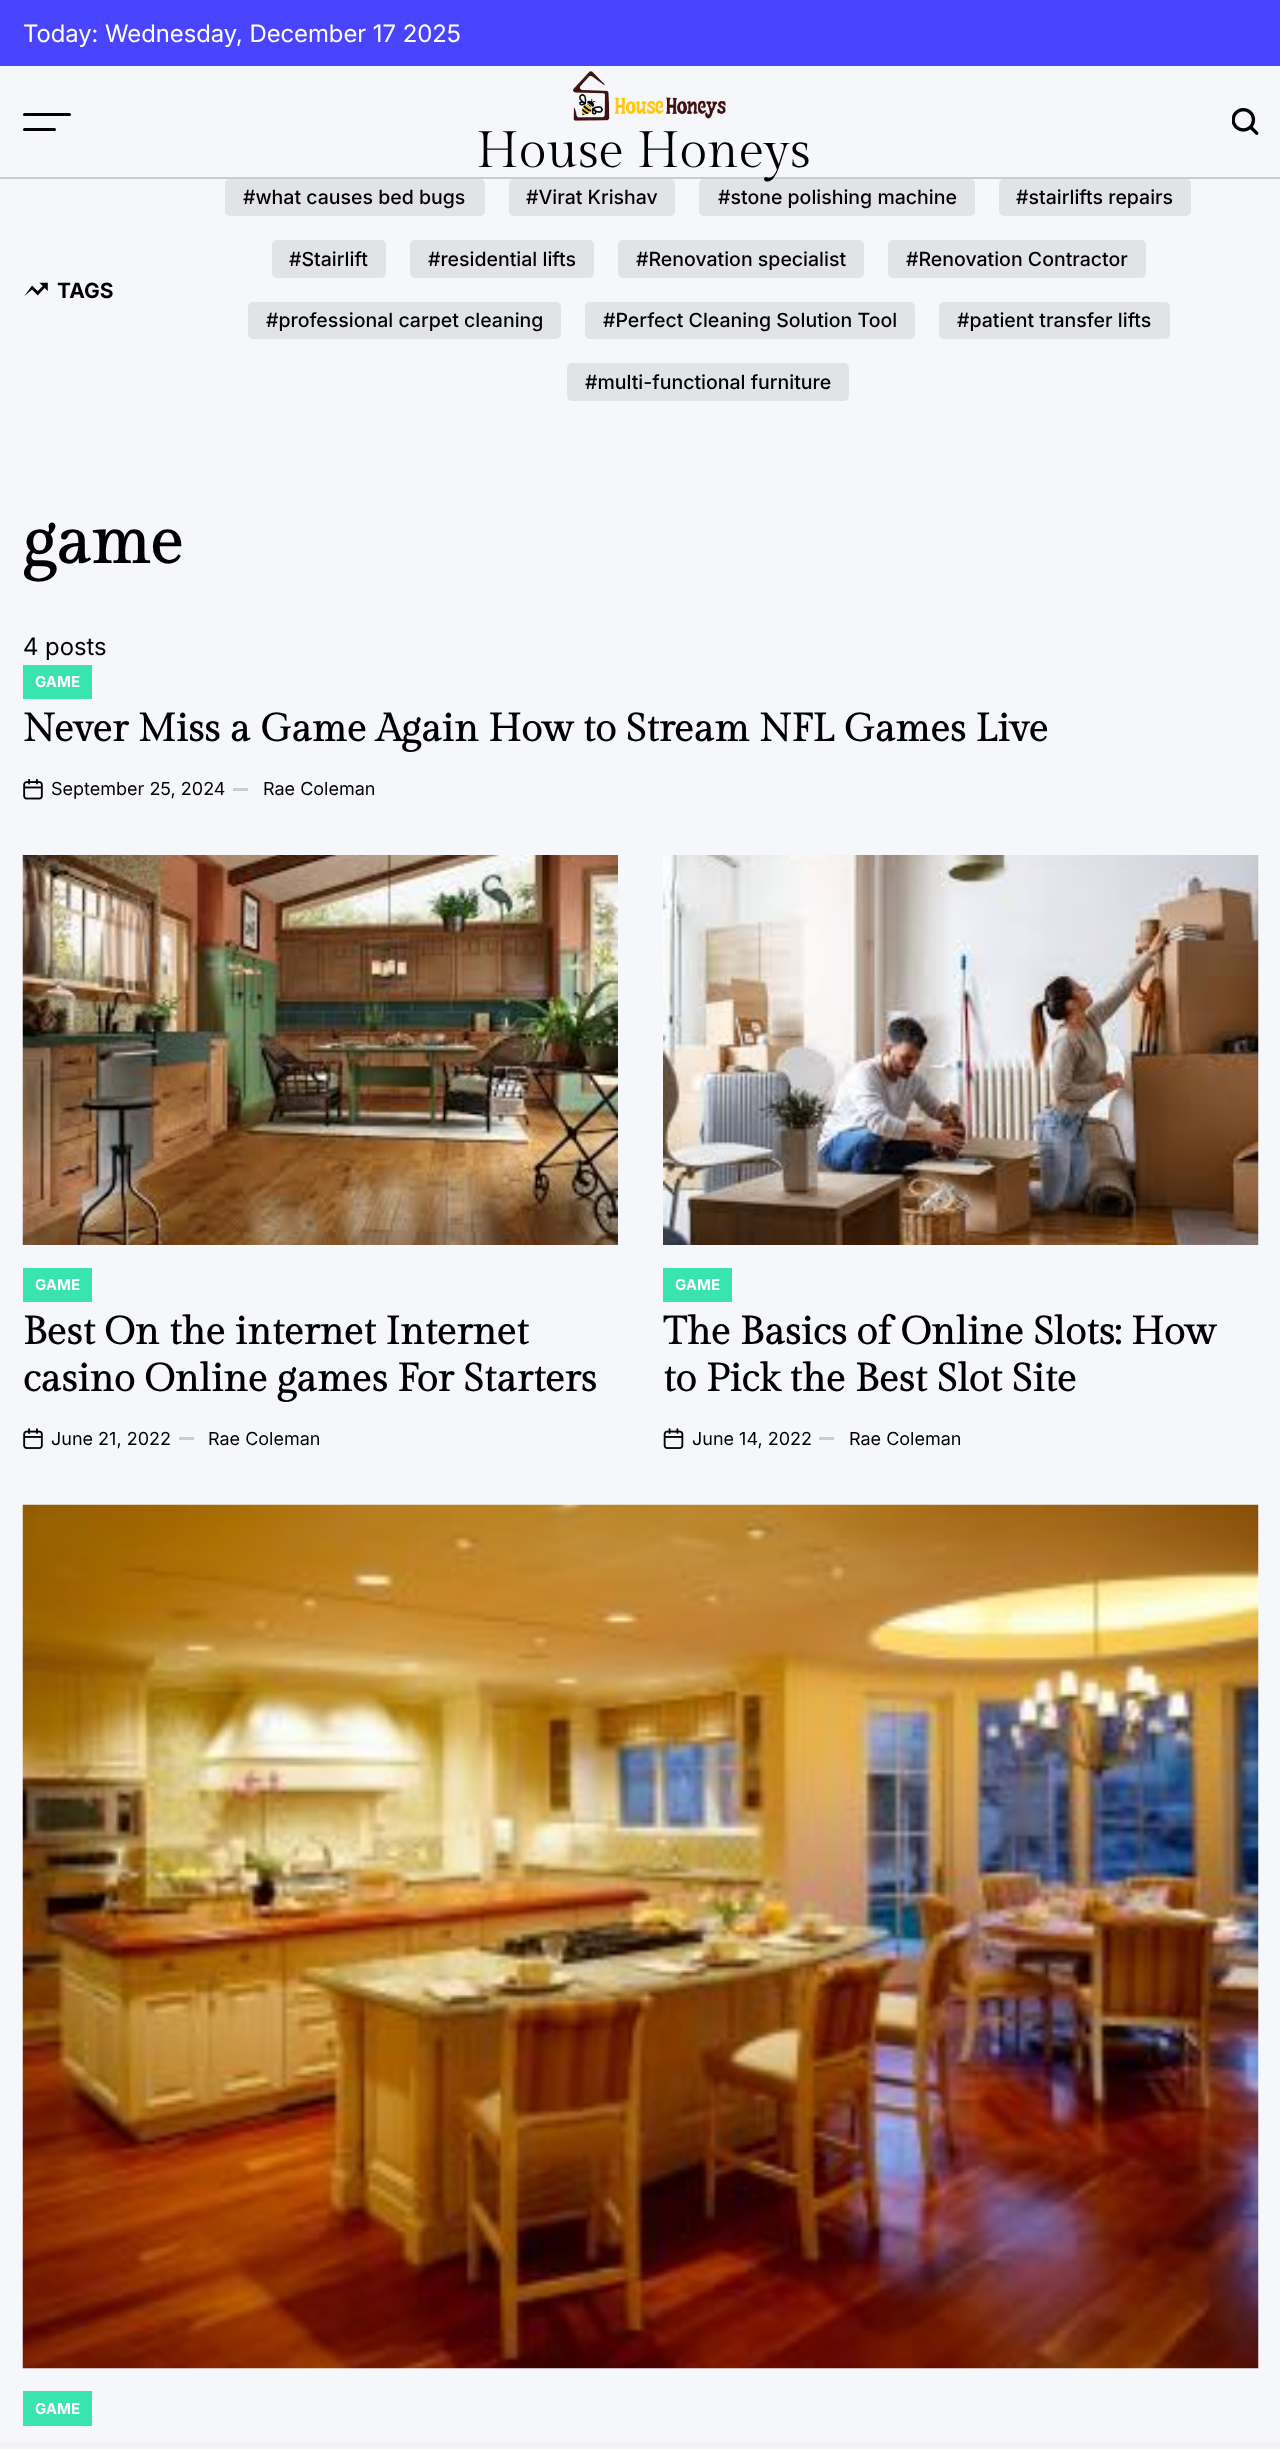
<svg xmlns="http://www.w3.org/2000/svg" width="1280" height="2449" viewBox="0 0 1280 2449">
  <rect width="100%" height="100%" fill="#f6f7fa"/>
  <path d="M0 0h1280v66H0z" fill="#4945ff"/>
  <path d="M0 177h1280v2H0z" fill="#ccc"/>
  <rect x="23" y="113" width="48" height="3" rx="1.5" fill="#000"/>
  <rect x="23" y="128" width="33" height="3" rx="1.5" fill="#000"/>
  <image x="1232" y="108" width="27" height="27" href="img/1.png"/>
  <image x="573" y="71" width="153" height="50" href="img/2.png"/>
  <image x="24" y="282" width="24" height="14" href="img/3.png"/>
  <rect x="699" y="179" width="276" height="37" rx="5" fill="#00000014"/>
  <rect x="999" y="179" width="192" height="37" rx="5" fill="#e2e3e6"/>
  <rect x="272" y="240" width="114" height="38" rx="5" fill="#e2e3e6"/>
  <rect x="410" y="240" width="184" height="38" rx="5" fill="#e2e3e6"/>
  <rect x="618" y="240" width="246" height="38" rx="5" fill="#e2e3e6"/>
  <rect x="888" y="240" width="258" height="38" rx="5" fill="#e2e3e6"/>
  <rect x="248" y="302" width="313" height="37" rx="5" fill="#e2e3e6"/>
  <rect x="585" y="302" width="330" height="37" rx="5" fill="#e2e3e6"/>
  <rect x="939" y="302" width="231" height="37" rx="5" fill="#e2e3e6"/>
  <rect x="567" y="363" width="282" height="38" rx="5" fill="#e2e3e6"/>
  <path d="M23 665h69v34H23z" fill="#3ae4ae"/>
  <image x="23" y="779" width="20" height="21" href="img/4.png"/>
  <path d="M233 788h15v3H233z" fill="#ccc"/>
  <image x="22" y="855" width="596" height="390" href="img/5.png"/>
  <path d="M23 1268h69v34H23z" fill="#3ae4ae"/>
  <image x="23" y="1428" width="20" height="21" href="img/6.png"/>
  <path d="M179 1437h15v3H179z" fill="#ccc"/>
  <image x="663" y="855" width="596" height="390" href="img/7.png"/>
  <path d="M663 1268h69v34H663z" fill="#3ae4ae"/>
  <image x="663" y="1428" width="21" height="21" href="img/8.png"/>
  <path d="M819 1437h15v3H819z" fill="#ccc"/>
  <image x="22" y="1504" width="1237" height="865" href="img/9.png"/>
  <path d="M23 2391h69v35H23z" fill="#3ae4ae"/>
  <path d="M0 2442h1280v7H0z" fill="#f3f3f3"/>
  <text x="23" y="42" font-family="Inter" font-size="24" fill="#fff">Today: Wednesday, December 17 2025</text>
  <text x="476" y="167" font-family="Gilda Display" font-size="51" fill="#000">House Honeys</text>
  <text x="57" y="298" font-family="Inter" font-size="21" font-weight="bold" fill="#000">TAGS</text>
  <rect x="225" y="179" width="260" height="37" rx="5" fill="#e2e3e6"/>
  <text x="243" y="204" font-family="Inter" font-size="19.5" font-weight="500" fill="#000">#what causes bed bugs</text>
  <rect x="509" y="179" width="166" height="37" rx="5" fill="#e2e3e6"/>
  <g font-family="Inter" font-size="19.5" font-weight="500" fill="#000">
    <text x="526" y="204">#Virat Krishav</text>
    <text x="718" y="204">#stone polishing machine</text>
    <text x="1016" y="204">#stairlifts repairs</text>
    <text x="289" y="266">#Stairlift</text>
    <text x="428" y="266">#residential lifts</text>
    <text x="636" y="266">#Renovation specialist</text>
    <text x="906" y="266">#Renovation Contractor</text>
    <text x="266" y="327">#professional carpet cleaning</text>
    <text x="603" y="327">#Perfect Cleaning Solution Tool</text>
    <text x="957" y="327">#patient transfer lifts</text>
    <text x="585" y="389">#multi-functional furniture</text>
  </g>
  <text x="23" y="563" font-family="Gilda Display" font-size="66" font-weight="bold" fill="#000">game</text>
  <text x="23" y="655" font-family="Inter" font-size="24" fill="#000">4 posts</text>
  <text x="35" y="687" font-family="Inter" font-size="15" font-weight="bold" fill="#fff">GAME</text>
  <text x="23" y="741" font-family="Gilda Display" font-size="39" font-weight="bold" fill="#000">Never Miss a Game Again How to Stream NFL Games Live</text>
  <g font-family="'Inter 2'" font-size="18" fill="#000">
    <text x="51" y="795">September 25, 2024</text>
    <text x="263" y="795">Rae Coleman</text>
  </g>
  <text x="35" y="1290" font-family="Inter" font-size="15" font-weight="bold" fill="#fff">GAME</text>
  <g font-family="Gilda Display" font-size="39" font-weight="bold" fill="#000">
    <text x="23" y="1344">Best On the internet Internet</text>
    <text x="23" y="1391">casino Online games For Starters</text>
  </g>
  <g font-family="'Inter 2'" font-size="18" fill="#000">
    <text x="51" y="1445">June 21, 2022</text>
    <text x="208" y="1445">Rae Coleman</text>
  </g>
  <text x="675" y="1290" font-family="Inter" font-size="15" font-weight="bold" fill="#fff">GAME</text>
  <g font-family="Gilda Display" font-size="39" font-weight="bold" fill="#000">
    <text x="663" y="1344">The Basics of Online Slots: How</text>
    <text x="663" y="1391">to Pick the Best Slot Site</text>
  </g>
  <g font-family="'Inter 2'" font-size="18" fill="#000">
    <text x="692" y="1445">June 14, 2022</text>
    <text x="849" y="1445">Rae Coleman</text>
  </g>
  <text x="35" y="2414" font-family="Inter" font-size="15" font-weight="bold" fill="#fff">GAME</text>
</svg>
